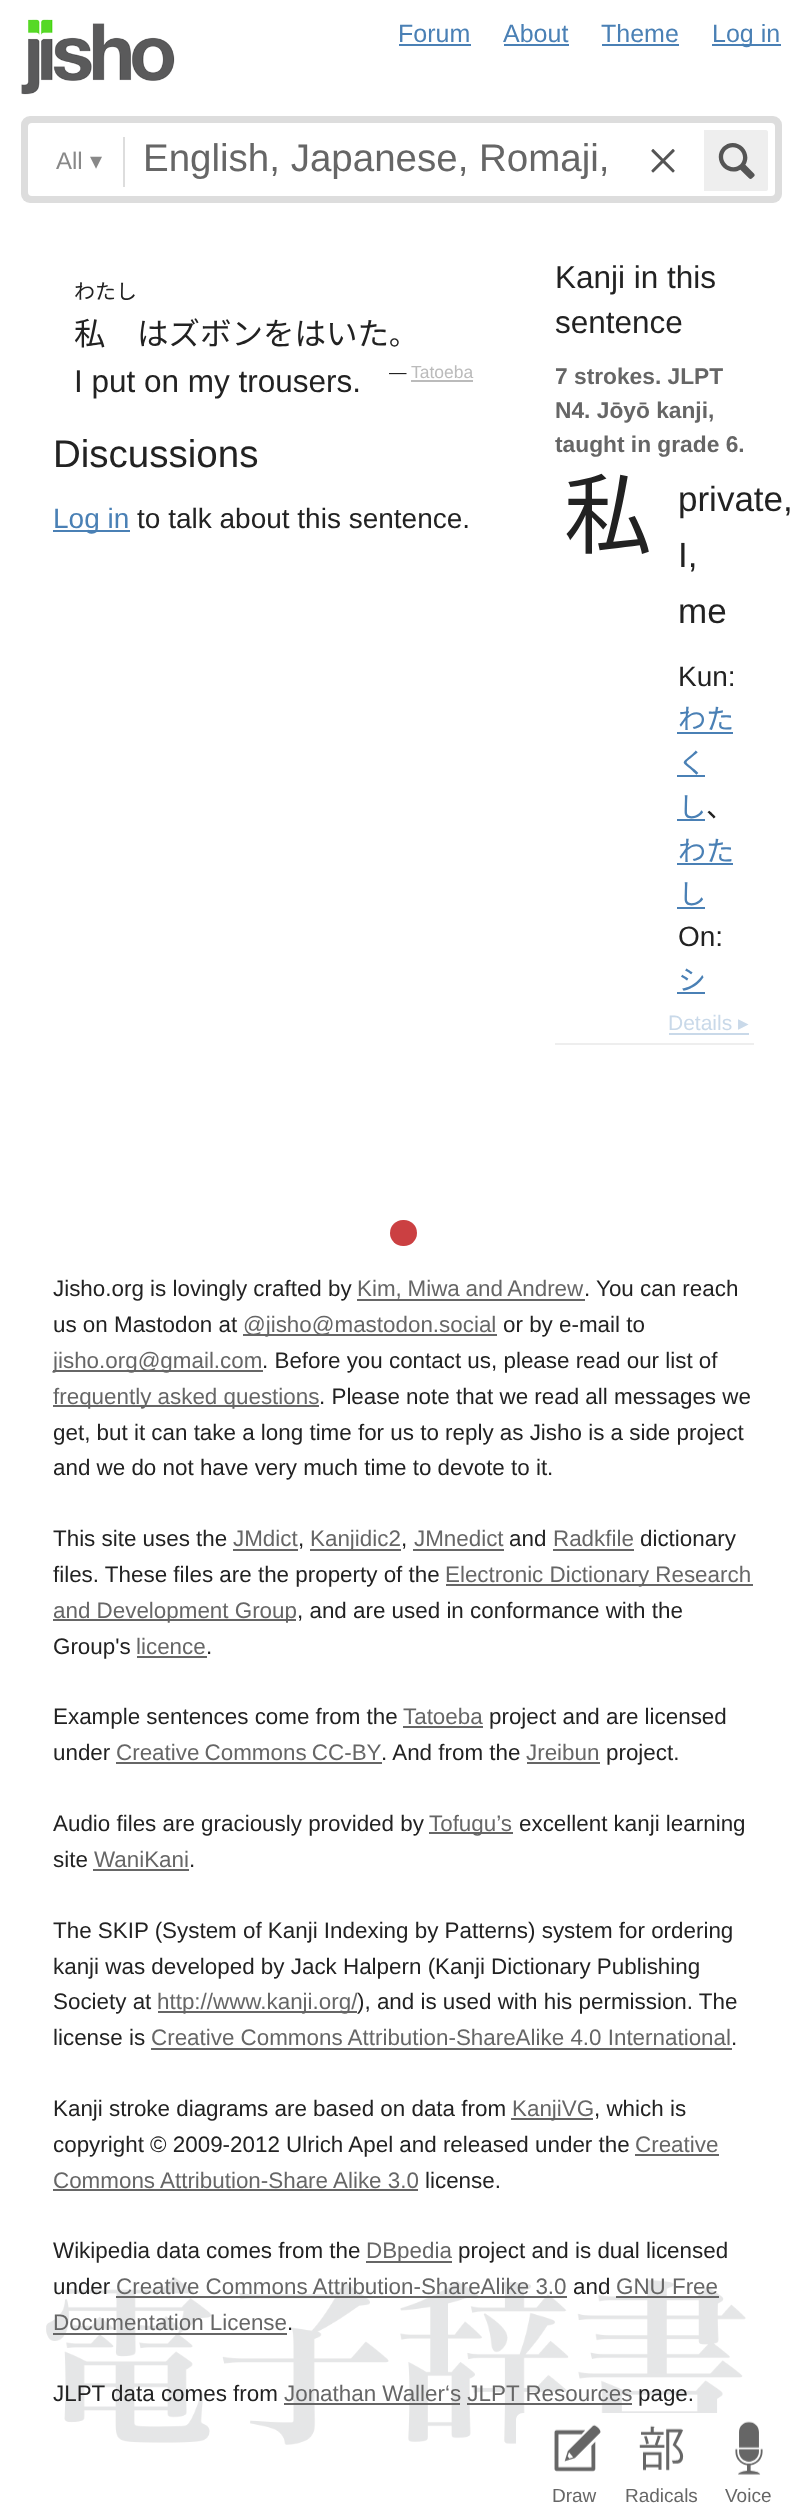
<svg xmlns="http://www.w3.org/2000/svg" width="806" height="2512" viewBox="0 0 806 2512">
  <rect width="100%" height="100%" fill="#fff"/>
  <image x="21" y="19" width="154" height="76" href="img/1.png"/>
  <path d="M399 44h72v2H399z" fill="#4a80b5"/>
  <path d="M504 44h65v2H504z" fill="#4a80b5"/>
  <path d="M602 44h77v2H602z" fill="#4a80b5"/>
  <path d="M712 44h69v2H712z" fill="#4a80b5"/>
  <rect x="21" y="116" width="761" height="87" rx="9" fill="#ddd"/>
  <rect x="28" y="123" width="747" height="73" rx="4" fill="#fff"/>
  <path d="M123 137h2v50H123z" fill="#ddd"/>
  <image x="651" y="149" width="24" height="24" href="img/2.png"/>
  <path d="M704 130H766C767 130 768 131 768 132V189C768 190 767 191 766 191H704Z" fill="#eee"/>
  <image x="718" y="143" width="37" height="36" href="img/3.png"/>
  <image x="46" y="2277" width="700" height="168" href="img/7.png"/>
  <path d="M523 2413H793V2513H516V2420C516 2416 519 2413 523 2413Z" fill="#fff"/>
  <image x="554" y="2424" width="47" height="48" href="img/4.png"/>
  <image x="639" y="2425" width="45" height="46" href="img/5.png"/>
  <image x="735" y="2421" width="28" height="54" href="img/6.png"/>
  <path d="M411 380h62v2H411z" fill="#bbb"/>
  <path d="M53 530h77v2H53z" fill="#4a80b5"/>
  <path d="M555 1043h199v2H555z" fill="#eee"/>
  <path d="M677 732h56v2H677z" fill="#4a80b5"/>
  <path d="M677 775h28v2H677z" fill="#4a80b5"/>
  <path d="M677 819h28v2H677z" fill="#4a80b5"/>
  <path d="M677 863h56v2H677z" fill="#4a80b5"/>
  <path d="M677 907h28v2H677z" fill="#4a80b5"/>
  <path d="M677 992h28v2H677z" fill="#4a80b5"/>
  <path d="M669 1033h80v2H669z" fill="#c9d9e9"/>
  <rect x="390" y="1220" width="27" height="26" rx="13" fill="#cb4042"/>
  <path d="M357 1299h228v2H357z" fill="#666"/>
  <path d="M243 1334h254v2H243z" fill="#666"/>
  <path d="M53 1370h210v2H53z" fill="#666"/>
  <path d="M53 1405h266v2H53z" fill="#666"/>
  <path d="M233 1549h65v2H233z" fill="#666"/>
  <path d="M310 1549h91v2H310z" fill="#666"/>
  <path d="M413 1549h91v2H413z" fill="#666"/>
  <path d="M553 1549h81v2H553z" fill="#666"/>
  <path d="M446 1584h307v2H446z" fill="#666"/>
  <path d="M53 1619h243v2H53z" fill="#666"/>
  <path d="M137 1656h70v2H137z" fill="#666"/>
  <path d="M403 1726h80v2H403z" fill="#666"/>
  <path d="M116 1762h266v2H116z" fill="#666"/>
  <path d="M527 1762h73v2H527z" fill="#666"/>
  <path d="M429 1832h84v2H429z" fill="#666"/>
  <path d="M93 1869h96v2H93z" fill="#666"/>
  <path d="M158 2011h199v2H158z" fill="#666"/>
  <path d="M151 2048h581v2H151z" fill="#666"/>
  <path d="M511 2118h82v2H511z" fill="#666"/>
  <path d="M635 2154h84v2H635z" fill="#666"/>
  <path d="M53 2189h365v2H53z" fill="#666"/>
  <path d="M366 2261h86v2H366z" fill="#666"/>
  <path d="M116 2296h451v2H116z" fill="#666"/>
  <path d="M616 2296h103v2H616z" fill="#666"/>
  <path d="M53 2333h234v2H53z" fill="#666"/>
  <path d="M284 2403h176v2H284z" fill="#666"/>
  <path d="M467 2403h165v2H467z" fill="#666"/>
  <g font-family="Liberation Sans" font-size="25" fill="#4a80b5">
    <text x="398" y="42">Forum</text>
    <text x="503" y="42">About</text>
    <text x="601" y="42">Theme</text>
    <text x="712" y="42">Log in</text>
  </g>
  <text x="56" y="169" font-family="Liberation Sans" font-size="24" fill="#888">All</text>
  <text x="90" y="169" font-family="DejaVu Sans" font-size="24" fill="#888">▾</text>
  <text x="143" y="171" font-family="Liberation Sans" font-size="38.5" fill="#666">English, Japanese, Romaji,</text>
  <g font-family="Liberation Sans" font-size="19" fill="#666">
    <text x="552" y="2502">Draw</text>
    <text x="625" y="2502">Radicals</text>
    <text x="725" y="2502">Voice</text>
  </g>
  <text x="74" y="299" font-family="Noto Sans CJK JP" font-size="21" fill="#222">わたし</text>
  <g font-family="Noto Sans CJK JP" font-size="31.5" fill="#222">
    <text x="74" y="345">私</text>
    <text x="137" y="345">はズボンをはいた</text>
  </g>
  <text x="389" y="345" font-family="Noto Sans CJK JP" font-size="28" fill="#222">。</text>
  <text x="74" y="392" font-family="Liberation Sans" font-size="31.5" fill="#222">I put on my trousers.</text>
  <text x="389" y="378" font-family="Liberation Sans" font-size="17.5" fill="#222">—</text>
  <text x="411" y="378" font-family="Liberation Sans" font-size="17.5" fill="#bbb">Tatoeba</text>
  <text x="53" y="467" font-family="Liberation Sans" font-size="38.5" fill="#222">Discussions</text>
  <text x="53" y="528" font-family="Liberation Sans" font-size="28" fill="#4a80b5">Log in</text>
  <text x="137" y="528" font-family="Liberation Sans" font-size="28" fill="#222">to talk about this sentence.</text>
  <g font-family="Liberation Sans" font-size="31.5" fill="#222">
    <text x="555" y="288">Kanji in this</text>
    <text x="555" y="333">sentence</text>
  </g>
  <g font-family="Liberation Sans" font-size="22.75" font-weight="bold" fill="#666">
    <text x="555" y="384">7 strokes. JLPT</text>
    <text x="555" y="418">N4. Jōyō kanji,</text>
    <text x="555" y="452">taught in grade 6.</text>
  </g>
  <text x="564" y="547" font-family="Noto Sans CJK JP" font-size="88" fill="#222">私</text>
  <g font-family="Liberation Sans" font-size="35" fill="#222">
    <text x="678" y="511">private,</text>
    <text x="678" y="567">I,</text>
    <text x="678" y="623">me</text>
  </g>
  <text x="678" y="686" font-family="Liberation Sans" font-size="28" fill="#222">Kun:</text>
  <g font-family="Noto Sans CJK JP" font-size="28" fill="#4a80b5">
    <text x="678" y="729">わた</text>
    <text x="678" y="773">く</text>
    <text x="678" y="817">し</text>
  </g>
  <text x="706" y="817" font-family="Noto Sans CJK JP" font-size="28" fill="#222">、</text>
  <g font-family="Noto Sans CJK JP" font-size="28" fill="#4a80b5">
    <text x="678" y="861">わた</text>
    <text x="678" y="904">し</text>
  </g>
  <text x="678" y="946" font-family="Liberation Sans" font-size="28" fill="#222">On:</text>
  <text x="678" y="990" font-family="Noto Sans CJK JP" font-size="28" fill="#4a80b5">シ</text>
  <text x="668" y="1030" font-family="Liberation Sans" font-size="21" fill="#c9d9e9">Details</text>
  <text x="738" y="1030" font-family="DejaVu Sans" font-size="21" fill="#c9d9e9">▸</text>
  <text x="53" y="1296" font-family="Liberation Sans" font-size="22.4" fill="#222">Jisho.org is lovingly crafted by</text>
  <text x="357" y="1296" word-spacing="-0.5" font-family="Liberation Sans" font-size="22.4" fill="#666">Kim, Miwa and Andrew</text>
  <g font-family="Liberation Sans" font-size="22.4" fill="#222">
    <text x="584" y="1296">.</text>
    <text x="596" y="1296">You can reach</text>
    <text x="53" y="1332">us on Mastodon at</text>
  </g>
  <text x="243" y="1332" font-family="Liberation Sans" font-size="22.4" fill="#666">@jisho@mastodon.social</text>
  <text x="503" y="1332" font-family="Liberation Sans" font-size="22.4" fill="#222">or by e-mail to</text>
  <text x="53" y="1368" font-family="Liberation Sans" font-size="22.4" fill="#666">jisho.org@gmail.com</text>
  <text x="262" y="1368" font-family="Liberation Sans" font-size="22.4" fill="#222">. Before you contact us, please read our list of</text>
  <text x="53" y="1404" font-family="Liberation Sans" font-size="22.4" fill="#666">frequently asked questions</text>
  <g font-family="Liberation Sans" font-size="22.4" fill="#222">
    <text x="319" y="1404">. Please note that we read all messages we</text>
    <text x="53" y="1440">get, but it can take a long time for us to reply as Jisho is a side project</text>
    <text x="53" y="1475">and we do not have very much time to devote to it.</text>
    <text x="53" y="1546">This site uses the</text>
  </g>
  <text x="233" y="1546" font-family="Liberation Sans" font-size="22.4" fill="#666">JMdict</text>
  <text x="298" y="1546" font-family="Liberation Sans" font-size="22.4" fill="#222">,</text>
  <text x="310" y="1546" font-family="Liberation Sans" font-size="22.4" fill="#666">Kanjidic2</text>
  <text x="401" y="1546" font-family="Liberation Sans" font-size="22.4" fill="#222">,</text>
  <text x="414" y="1546" font-family="Liberation Sans" font-size="22.4" fill="#666">JMnedict</text>
  <text x="509" y="1546" font-family="Liberation Sans" font-size="22.4" fill="#222">and</text>
  <text x="553" y="1546" font-family="Liberation Sans" font-size="22.4" fill="#666">Radkfile</text>
  <g font-family="Liberation Sans" font-size="22.4" fill="#222">
    <text x="640" y="1546">dictionary</text>
    <text x="53" y="1582">files. These files are the property of the</text>
  </g>
  <g font-family="Liberation Sans" font-size="22.4" fill="#666">
    <text x="445" y="1582">Electronic Dictionary Research</text>
    <text x="53" y="1618">and Development Group</text>
  </g>
  <g font-family="Liberation Sans" font-size="22.4" fill="#222">
    <text x="297" y="1618">, and are used in conformance with the</text>
    <text x="53" y="1654">Group's</text>
  </g>
  <text x="136" y="1654" font-family="Liberation Sans" font-size="22.4" fill="#666">licence</text>
  <g font-family="Liberation Sans" font-size="22.4" fill="#222">
    <text x="206" y="1654">.</text>
    <text x="53" y="1724">Example sentences come from the</text>
  </g>
  <text x="403" y="1724" font-family="Liberation Sans" font-size="22.4" fill="#666">Tatoeba</text>
  <g font-family="Liberation Sans" font-size="22.4" fill="#222">
    <text x="489" y="1724">project and are licensed</text>
    <text x="53" y="1760">under</text>
  </g>
  <text x="116" y="1760" word-spacing="-1" font-family="Liberation Sans" font-size="22.4" fill="#666">Creative Commons CC-BY</text>
  <text x="381" y="1760" font-family="Liberation Sans" font-size="22.4" fill="#222">. And from the</text>
  <text x="526" y="1760" font-family="Liberation Sans" font-size="22.4" fill="#666">Jreibun</text>
  <g font-family="Liberation Sans" font-size="22.4" fill="#222">
    <text x="606" y="1760">project.</text>
    <text x="53" y="1831">Audio files are graciously provided by</text>
  </g>
  <text x="429" y="1831" font-family="Liberation Sans" font-size="22.4" fill="#666">Tofugu’s</text>
  <g font-family="Liberation Sans" font-size="22.4" fill="#222">
    <text x="519" y="1831">excellent kanji learning</text>
    <text x="53" y="1867">site</text>
  </g>
  <text x="94" y="1867" font-family="Liberation Sans" font-size="22.4" fill="#666">WaniKani</text>
  <g font-family="Liberation Sans" font-size="22.4" fill="#222">
    <text x="189" y="1867">.</text>
    <text x="53" y="1938">The SKIP (System of Kanji Indexing by Patterns) system for ordering</text>
    <text x="53" y="1974">kanji was developed by Jack Halpern (Kanji Dictionary Publishing</text>
    <text x="53" y="2009">Society at</text>
  </g>
  <text x="157" y="2009" font-family="Liberation Sans" font-size="22.4" fill="#666">http://www.kanji.org/</text>
  <g font-family="Liberation Sans" font-size="22.4" fill="#222">
    <text x="357" y="2009">), and is used with his permission. The</text>
    <text x="53" y="2045">license is</text>
  </g>
  <text x="151" y="2045" font-family="Liberation Sans" font-size="22.4" fill="#666">Creative Commons Attribution-ShareAlike 4.0 International</text>
  <g font-family="Liberation Sans" font-size="22.4" fill="#222">
    <text x="731" y="2045">.</text>
    <text x="53" y="2116">Kanji stroke diagrams are based on data from</text>
  </g>
  <text x="512" y="2116" font-family="Liberation Sans" font-size="22.4" fill="#666">KanjiVG</text>
  <g font-family="Liberation Sans" font-size="22.4" fill="#222">
    <text x="594" y="2116">, which is</text>
    <text x="53" y="2152">copyright © 2009-2012 Ulrich Apel and released under the</text>
  </g>
  <g font-family="Liberation Sans" font-size="22.4" fill="#666">
    <text x="635" y="2152">Creative</text>
    <text x="53" y="2188">Commons Attribution-Share Alike 3.0</text>
  </g>
  <g font-family="Liberation Sans" font-size="22.4" fill="#222">
    <text x="425" y="2188">license.</text>
    <text x="53" y="2258">Wikipedia data comes from the</text>
  </g>
  <text x="366" y="2258" font-family="Liberation Sans" font-size="22.4" fill="#666">DBpedia</text>
  <g font-family="Liberation Sans" font-size="22.4" fill="#222">
    <text x="458" y="2258">project and is dual licensed</text>
    <text x="53" y="2294">under</text>
  </g>
  <text x="116" y="2294" font-family="Liberation Sans" font-size="22.4" fill="#666">Creative Commons Attribution-ShareAlike 3.0</text>
  <text x="573" y="2294" font-family="Liberation Sans" font-size="22.4" fill="#222">and</text>
  <g font-family="Liberation Sans" font-size="22.4" fill="#666">
    <text x="616" y="2294">GNU Free</text>
    <text x="53" y="2330">Documentation License</text>
  </g>
  <g font-family="Liberation Sans" font-size="22.4" fill="#222">
    <text x="287" y="2330">.</text>
    <text x="53" y="2401">JLPT data comes from</text>
  </g>
  <text x="284" y="2401" font-family="Liberation Sans" font-size="22.4" fill="#666">Jonathan Waller‘s JLPT Resources</text>
  <text x="638" y="2401" font-family="Liberation Sans" font-size="22.4" fill="#222">page.</text>
</svg>
